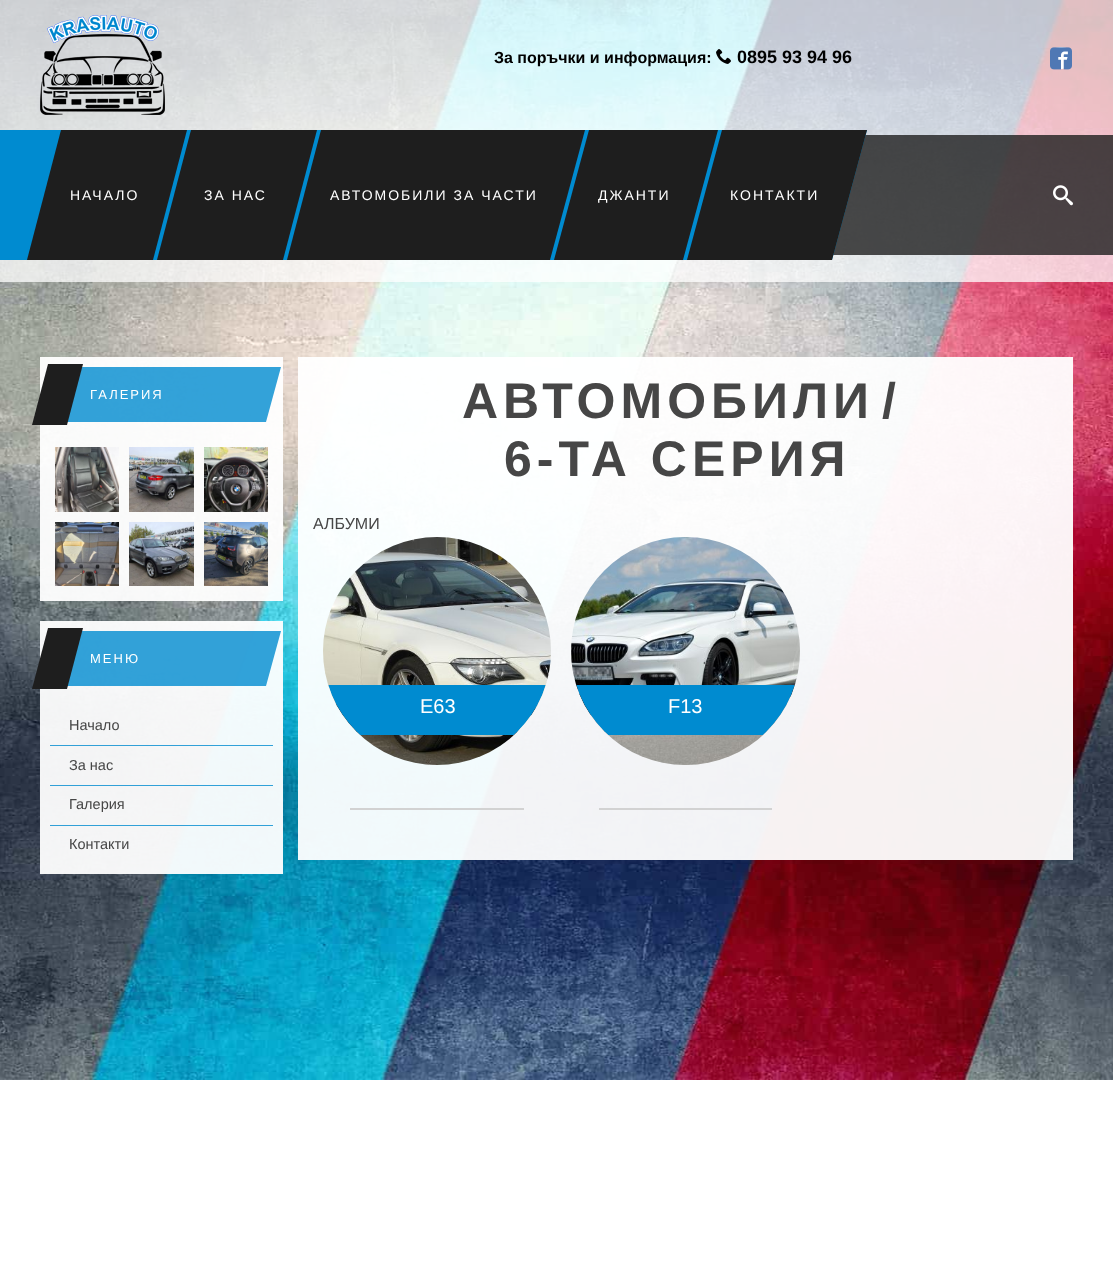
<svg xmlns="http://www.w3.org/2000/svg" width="1113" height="1273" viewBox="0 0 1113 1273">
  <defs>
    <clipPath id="clip1"><rect x="323" y="537" width="228" height="228" rx="114"/></clipPath>
    <clipPath id="clip2"><rect x="571" y="537" width="229" height="228" rx="114"/></clipPath>
  </defs>
  <rect width="100%" height="100%" fill="#fff"/>
  <image x="0" y="0" width="1113" height="1080" href="img/1.png"/>
  <path d="M0 0h1113v282H0z" fill="#ffffffbf"/>
  <image x="40" y="15" width="125" height="100" href="img/2.png"/>
  <image x="716" y="49" width="15" height="15" href="img/3.png"/>
  <rect x="1050" y="47" width="22" height="22" rx="10" fill="#fff"/>
  <image x="1050" y="47" width="22" height="23" href="img/4.png"/>
  <path d="M833 135h280v120H833z" fill="#1e1e1ecc"/>
  <path d="M-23 130H867L832 260H-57Z" fill="#008bd0"/>
  <path d="M61 130H187L153 260H27Z" fill="#1e1e1e"/>
  <path d="M191 130H317L283 260H157Z" fill="#1e1e1e"/>
  <path d="M321 130H585L550 260H287Z" fill="#1e1e1e"/>
  <path d="M589 130H718L683 260H554Z" fill="#1e1e1e"/>
  <path d="M722 130H867L832 260H687Z" fill="#1e1e1e"/>
  <image x="1053" y="185" width="20" height="21" href="img/5.png"/>
  <path d="M40 357h243v244H40z" fill="#fffffff2"/>
  <path d="M57 367H281L266 422H43Z" fill="#008bd0cc"/>
  <path d="M48 364H83L67 425H32Z" fill="#1e1e1e"/>
  <image x="55" y="447" width="64" height="65" href="img/6.png"/>
  <image x="129" y="447" width="65" height="65" href="img/7.png"/>
  <image x="204" y="447" width="64" height="65" href="img/8.png"/>
  <image x="55" y="522" width="64" height="64" href="img/9.png"/>
  <image x="129" y="522" width="65" height="64" href="img/10.png"/>
  <image x="204" y="522" width="64" height="64" href="img/11.png"/>
  <path d="M40 621h243v253H40z" fill="#fffffff2"/>
  <path d="M57 631H281L266 686H43Z" fill="#008bd0cc"/>
  <path d="M48 628H83L67 689H32Z" fill="#1e1e1e"/>
  <path d="M50 745h223v1H50z" fill="#008bd0cc"/>
  <path d="M50 785h223v1H50z" fill="#008bd0cc"/>
  <path d="M50 825h223v1H50z" fill="#008bd0cc"/>
  <path d="M298 357h775v503H298z" fill="#fffffff2"/>
  <image x="323" y="537" width="228" height="228" href="img/12.png"/>
  <g clip-path="url(#clip1)">
    <g clip-path="url(#clip1)">
      <path d="M328 685h218v50H328z" fill="#008bd0"/>
    </g>
  </g>
  <path d="M350 808h174v2H350z" fill="#d2d2d2"/>
  <image x="571" y="537" width="229" height="228" href="img/13.png"/>
  <g clip-path="url(#clip2)">
    <g clip-path="url(#clip2)">
      <path d="M576 685h219v50H576z" fill="#008bd0"/>
    </g>
  </g>
  <path d="M599 808h173v2H599z" fill="#d2d2d2"/>
  <text x="494" y="63" font-family="Liberation Sans" font-size="16" font-weight="bold" fill="#000">За поръчки и информация:</text>
  <text x="737" y="63" font-family="Liberation Sans" font-size="18" font-weight="bold" fill="#000">0895 93 94 96</text>
  <g font-family="Liberation Sans" font-size="14" letter-spacing="2" fill="#fff">
    <text x="70" y="200">НАЧАЛО</text>
    <text x="204" y="200">ЗА НАС</text>
    <text x="330" y="200">АВТОМОБИЛИ ЗА ЧАСТИ</text>
    <text x="598" y="200">ДЖАНТИ</text>
    <text x="730" y="200">КОНТАКТИ</text>
  </g>
  <g font-family="Liberation Sans" font-size="13" letter-spacing="2" fill="#fff">
    <text x="90" y="399">ГАЛЕРИЯ</text>
    <text x="90" y="663">МЕНЮ</text>
  </g>
  <g font-family="Liberation Sans" font-size="14.5" fill="#464646">
    <text x="69" y="730">Начало</text>
    <text x="69" y="770">За нас</text>
    <text x="69" y="809">Галерия</text>
    <text x="69" y="849">Контакти</text>
  </g>
  <g font-family="Liberation Sans" font-size="50" font-weight="bold" letter-spacing="5" fill="#464646">
    <text x="462" y="418">АВТОМОБИЛИ</text>
    <text x="882" y="418">/</text>
    <text x="504" y="476">6-ТА СЕРИЯ</text>
  </g>
  <text x="313" y="529" font-family="Liberation Sans" font-size="16" fill="#464646">АЛБУМИ</text>
  <g font-family="Liberation Sans" font-size="20" fill="#fff">
    <text x="420" y="713">Е63</text>
    <text x="668" y="713">F13</text>
  </g>
</svg>
